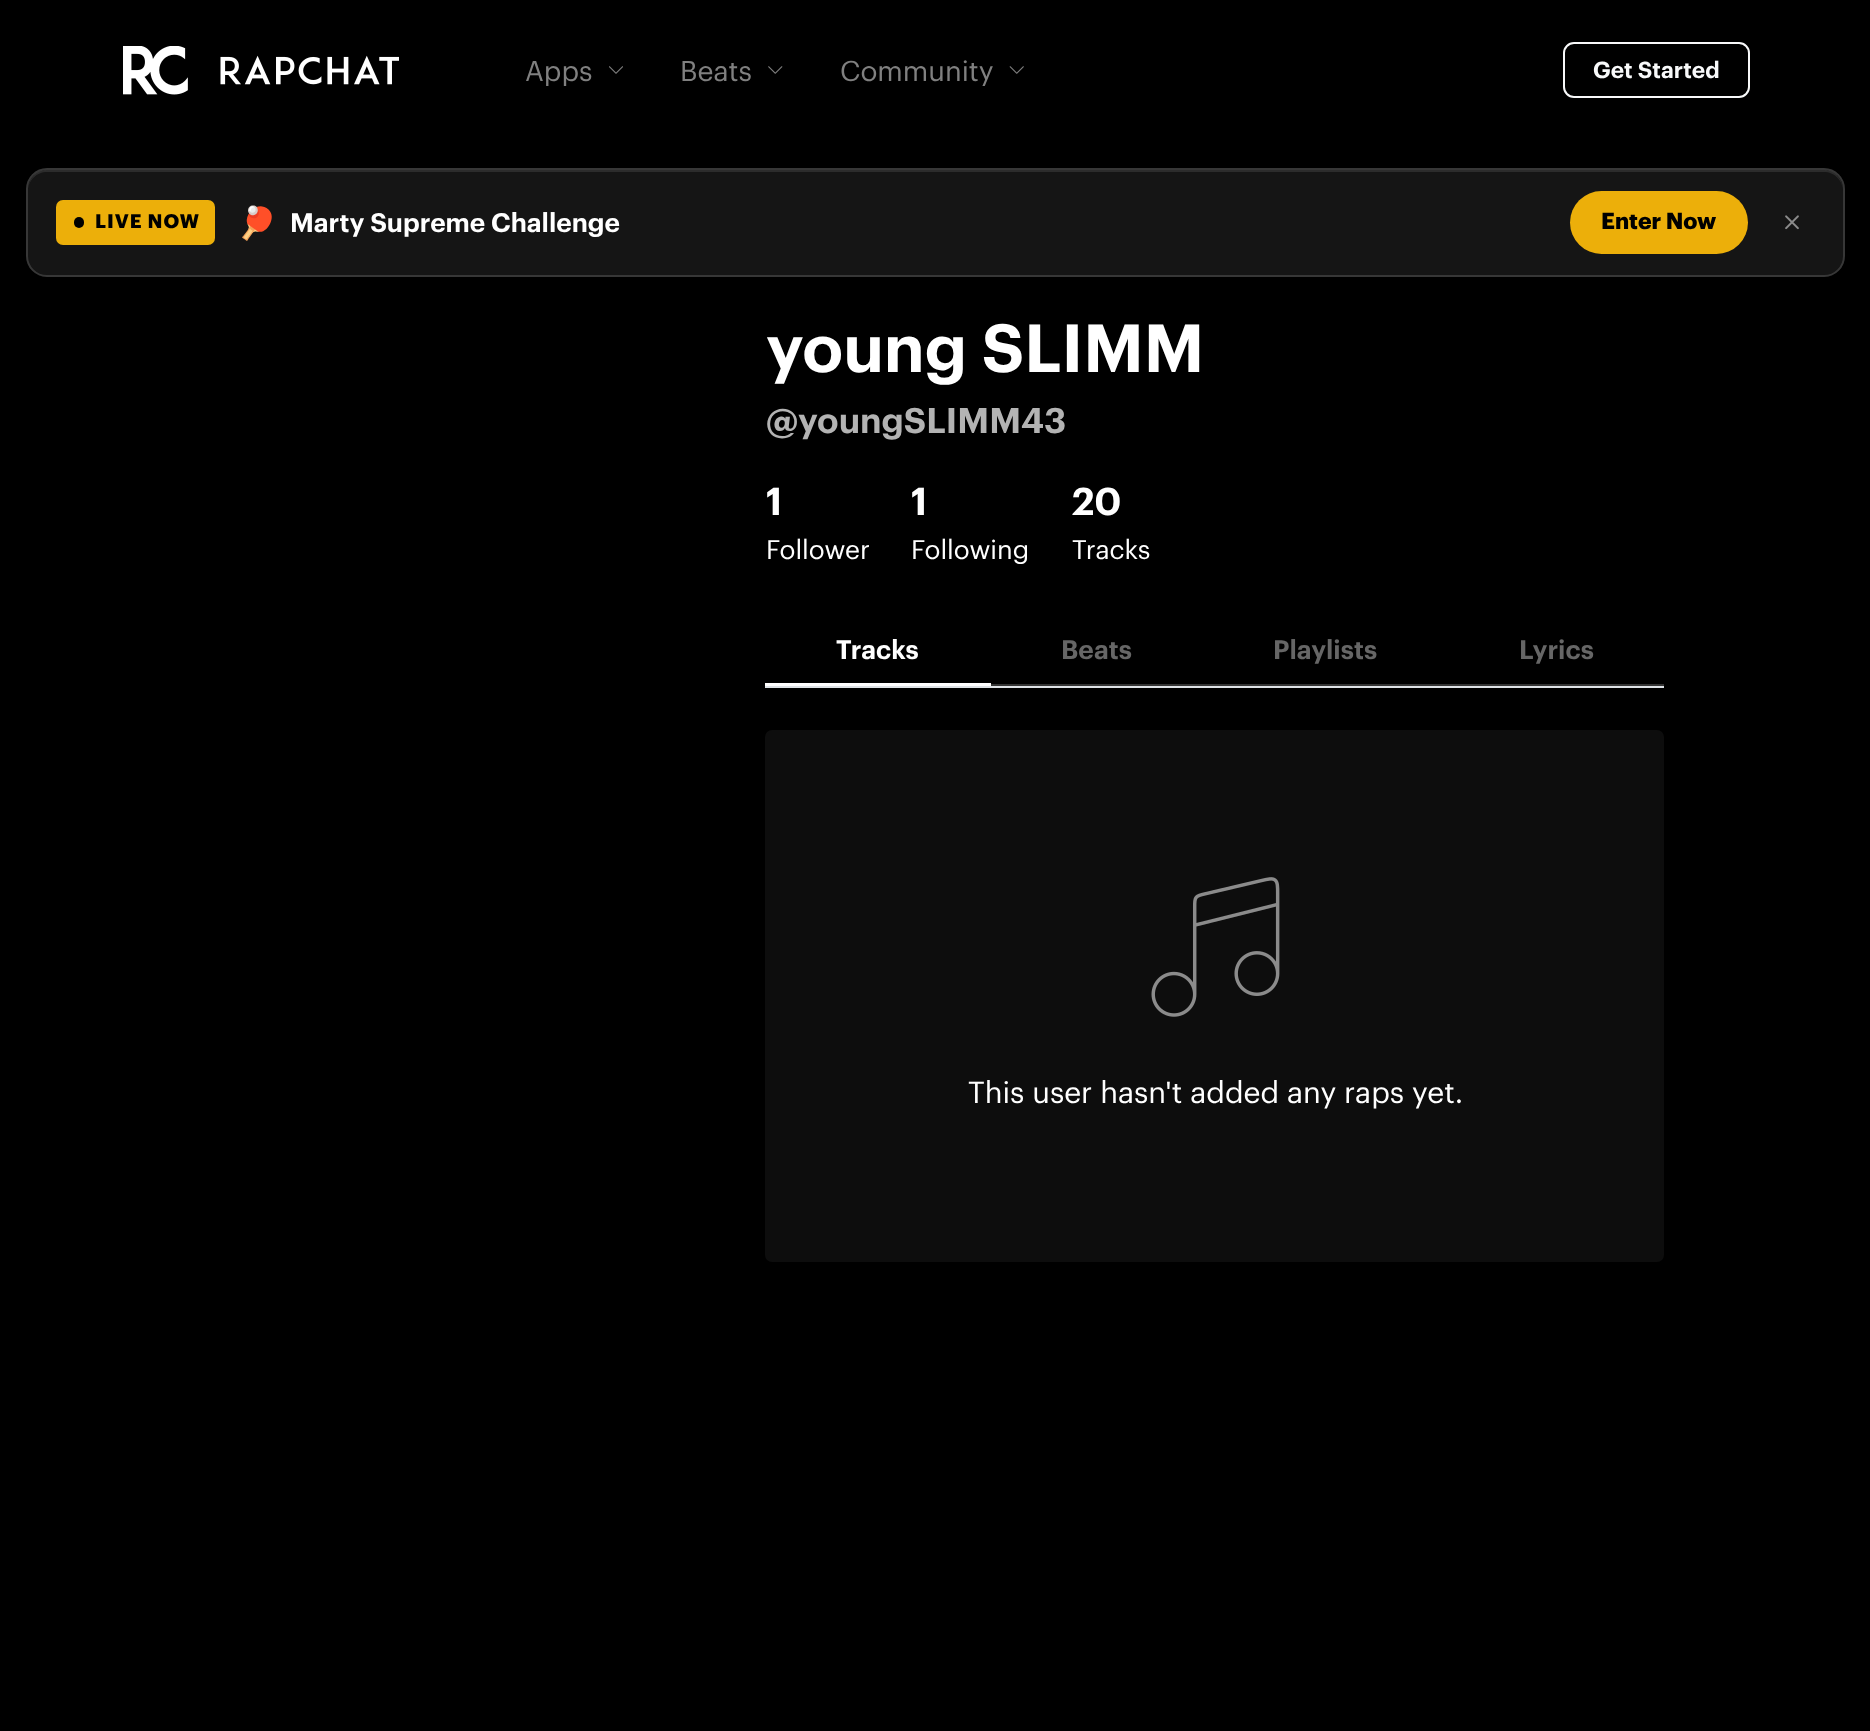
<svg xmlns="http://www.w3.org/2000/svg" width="1870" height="1731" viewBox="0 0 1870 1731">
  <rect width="100%" height="100%" fill="#000"/>
  <image x="123" y="46" width="276" height="49" href="img/1.png"/>
  <image x="609" y="66" width="14" height="8" href="img/2.png"/>
  <image x="768" y="66" width="15" height="8" href="img/3.png"/>
  <image x="1009" y="66" width="15" height="8" href="img/4.png"/>
  <rect x="26" y="182" width="1819" height="109" rx="21" fill="#00000066" filter="blur(28px)"/>
  <rect x="1564" y="43" width="185" height="54" rx="10" fill="none" stroke="#f8f9fa" stroke-width="2"/>
  <rect x="26" y="168" width="1819" height="109" rx="21" fill="#151515"/>
  <path d="M47 172H1824C1834 172 1843 180 1843 191C1843 180 1836 170 1824 170H47C35 170 28 180 28 191C28 180 37 172 47 172Z" fill="#2c2c2c"/>
  <rect x="27" y="169" width="1817" height="107" rx="20" fill="none" stroke="#ffffff26" stroke-width="2"/>
  <rect x="56" y="200" width="159" height="45" rx="7" fill="#ecaf0a"/>
  <rect x="74" y="217" width="10" height="11" rx="5" fill="#000"/>
  <rect x="1570" y="191" width="178" height="63" rx="31.5" fill="#ecaf0a"/>
  <image x="1785" y="215" width="14" height="15" href="img/5.png"/>
  <path d="M765 686h899v2H765z" fill="#dee2e6"/>
  <path d="M765 683h226v3H765z" fill="#fff"/>
  <path d="M991 684h673v2H991z" fill="#333"/>
  <rect x="765" y="730" width="899" height="532" rx="7" fill="#0d0d0d"/>
  <image x="1151" y="877" width="129" height="140" href="img/6.png"/>
  <g font-family="Graphik" font-size="28" fill="#808080">
    <text x="525" y="81">Apps</text>
    <text x="680" y="81">Beats</text>
    <text x="840" y="81">Community</text>
  </g>
  <text x="1593" y="78" font-family="Graphik" font-size="22.75" font-weight="600" fill="#f8f9fa">Get Started</text>
  <text x="95" y="228" font-family="Graphik" font-size="19.25" font-weight="bold" letter-spacing="1" fill="#000">LIVE NOW</text>
  <text x="237" y="234" font-family="Noto Color Emoji" font-size="32" fill="#fff">🏓</text>
  <text x="290" y="232" font-family="Graphik" font-size="26.25" font-weight="600" fill="#fff">Marty Supreme Challenge</text>
  <text x="1601" y="229" font-family="Graphik" font-size="22.75" font-weight="bold" fill="#000">Enter Now</text>
  <text x="766" y="372" font-family="Graphik" font-size="66.5" font-weight="600" fill="#fff">young SLIMM</text>
  <text x="766" y="433" font-family="Graphik" font-size="35" font-weight="600" fill="#b3b3b3">@youngSLIMM43</text>
  <text x="766" y="515" font-family="Graphik" font-size="38" font-weight="600" fill="#fff">1</text>
  <text x="766" y="559" font-family="Graphik" font-size="26.25" fill="#fff">Follower</text>
  <text x="911" y="515" font-family="Graphik" font-size="38" font-weight="600" fill="#fff">1</text>
  <text x="911" y="559" font-family="Graphik" font-size="26.25" fill="#fff">Following</text>
  <text x="1072" y="515" font-family="Graphik" font-size="38" font-weight="600" fill="#fff">20</text>
  <text x="1072" y="559" font-family="Graphik" font-size="26.25" fill="#fff">Tracks</text>
  <text x="836" y="659" font-family="Graphik" font-size="26.25" font-weight="600" fill="#fff">Tracks</text>
  <g font-family="Graphik" font-size="26.25" font-weight="600" fill="#666">
    <text x="1061" y="659">Beats</text>
    <text x="1273" y="659">Playlists</text>
    <text x="1519" y="659">Lyrics</text>
  </g>
  <text x="968" y="1103" font-family="Graphik" font-size="29.75" fill="#fff">This user hasn't added any raps yet.</text>
</svg>
